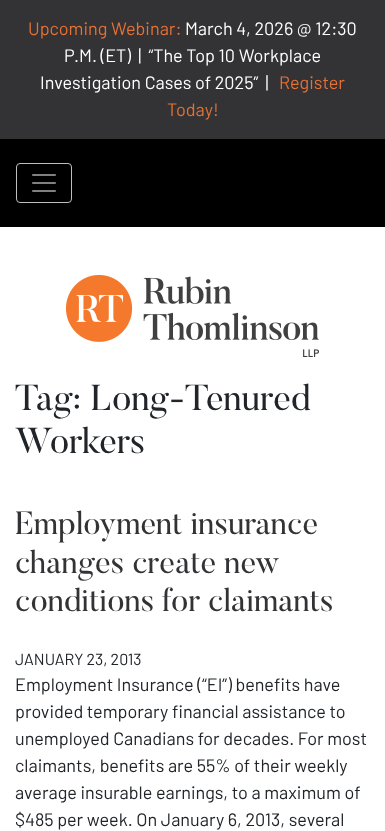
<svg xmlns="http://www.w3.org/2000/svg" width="385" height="831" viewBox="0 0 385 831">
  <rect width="100%" height="100%" fill="#fff"/>
  <path d="M0 0h385v139H0z" fill="#333235"/>
  <path d="M0 139h385v88H0z" fill="#000"/>
  <rect x="16.5" y="163.5" width="55" height="39" rx="3.5" fill="none" stroke="#bfbfbf"/>
  <image x="32" y="174" width="24" height="18" href="img/1.png"/>
  <image x="66" y="275" width="253" height="82" href="img/2.png"/>
  <text x="28" y="35" font-family="Barlow" font-size="18" fill="#e57134">Upcoming Webinar:</text>
  <g font-family="Barlow" font-size="18" fill="#fff">
    <text x="185" y="35">March 4, 2026 @ 12:30</text>
    <text x="64" y="62" xml:space="preserve">P.M. (ET)  |  “The Top 10 Workplace</text>
    <text x="40" y="89" xml:space="preserve">Investigation Cases of 2025”  |</text>
  </g>
  <g font-family="Barlow" font-size="18" fill="#e57134">
    <text x="279" y="89">Register</text>
    <text x="167" y="116">Today!</text>
  </g>
  <g font-family="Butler" font-size="36" fill="#212529">
    <text x="15" y="410">Tag: Long-Tenured</text>
    <text x="15" y="453">Workers</text>
  </g>
  <g font-family="Butler" font-size="32" fill="#333235">
    <text x="15" y="534">Employment insurance</text>
    <text x="15" y="573">changes create new</text>
    <text x="15" y="611">conditions for claimants</text>
  </g>
  <text x="15" y="665" font-family="Barlow" font-size="16" fill="#212529">JANUARY 23, 2013</text>
  <g font-family="Barlow" font-size="18" fill="#212529">
    <text x="15" y="691">Employment Insurance (“EI”) benefits have</text>
    <text x="15" y="718">provided temporary financial assistance to</text>
    <text x="15" y="745">unemployed Canadians for decades. For most</text>
    <text x="15" y="772">claimants, benefits are 55% of their weekly</text>
    <text x="15" y="799">average insurable earnings, to a maximum of</text>
    <text x="15" y="826">$485 per week. On January 6, 2013, several</text>
  </g>
</svg>
